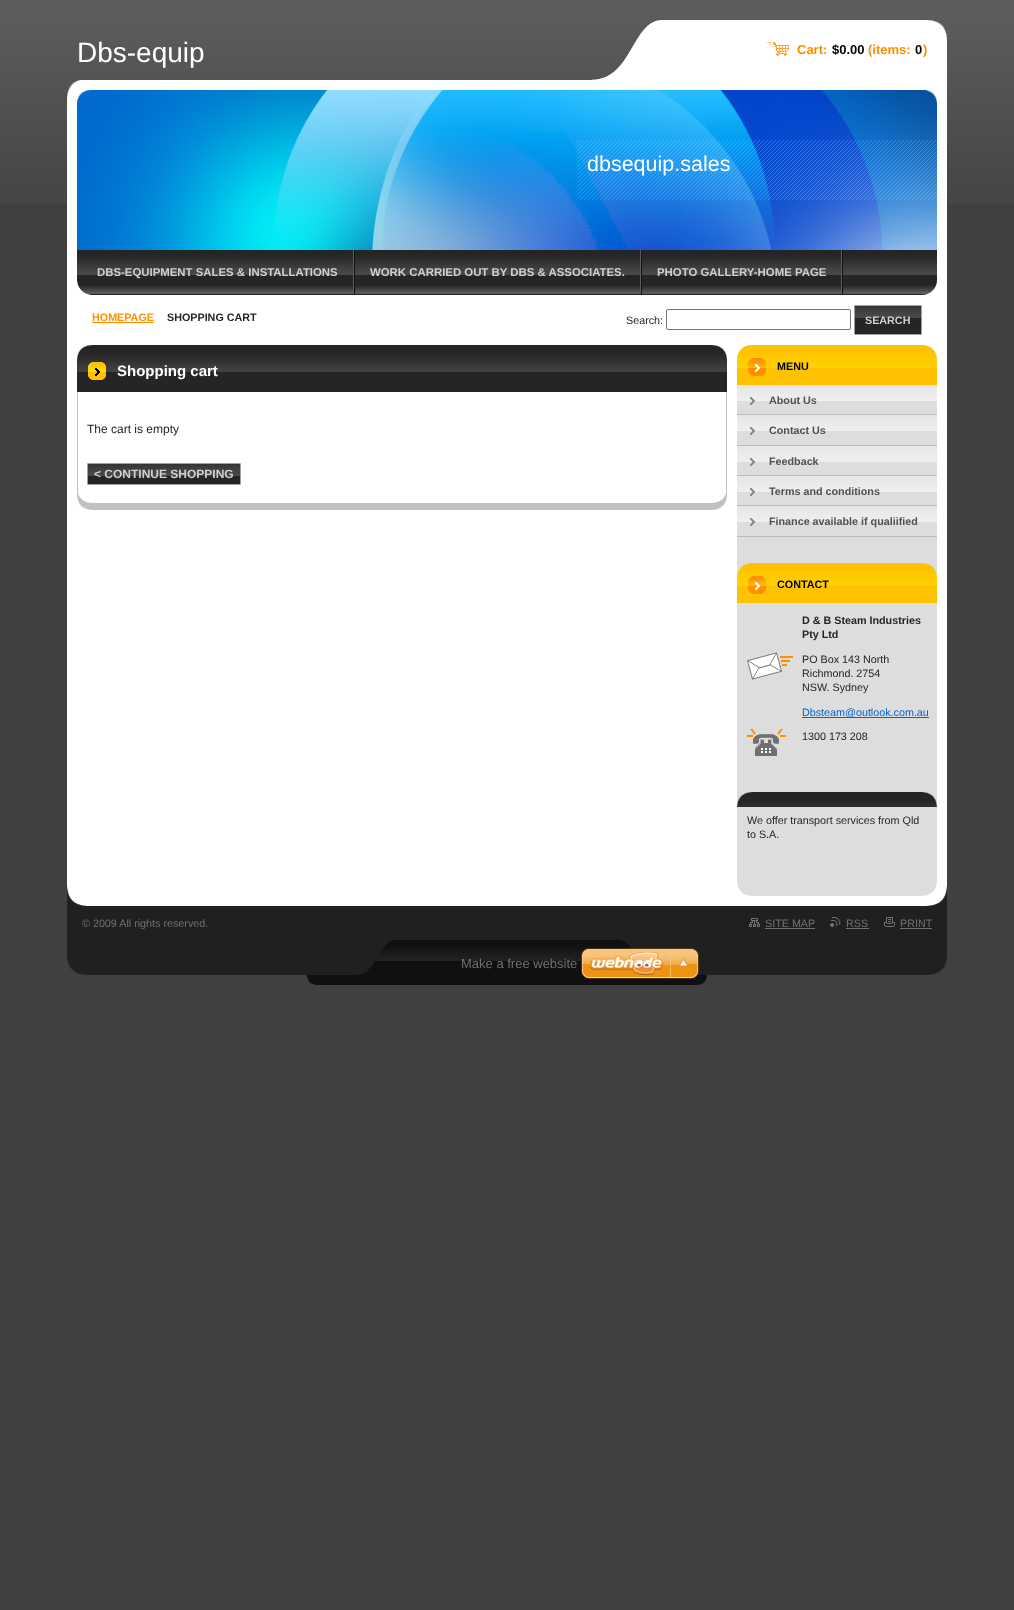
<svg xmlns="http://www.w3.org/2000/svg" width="1014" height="1610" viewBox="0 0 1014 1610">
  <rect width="100%" height="100%" fill="#404040"/>
  <image x="0" y="0" width="1014" height="204" href="img/1.png"/>
  <image x="67" y="80" width="880" height="170" href="img/2.png"/>
  <image x="77" y="90" width="860" height="160" href="img/4.png"/>
  <image x="67" y="80" width="870" height="23" href="img/3.png"/>
  <image x="67" y="250" width="880" height="45" href="img/5.png"/>
  <path d="M354 250h1v44H354z" fill="#101010"/>
  <path d="M353 250h1v44H353z" fill="#5f5f5f"/>
  <path d="M641 250h1v44H641z" fill="#101010"/>
  <path d="M640 250h1v44H640z" fill="#5f5f5f"/>
  <path d="M842 250h1v44H842z" fill="#101010"/>
  <path d="M841 250h1v44H841z" fill="#5f5f5f"/>
  <image x="77" y="281" width="13" height="14" href="img/6.png"/>
  <image x="592" y="20" width="355" height="60" href="img/7.png"/>
  <image x="767" y="42" width="22" height="14" href="img/8.png"/>
  <path d="M67 295h880v611H67z" fill="#fff"/>
  <path d="M92 322h62v1H92z" fill="#ff8f00"/>
  <rect x="666.5" y="309.5" width="184" height="20" rx="1.5" fill="none" stroke="#767676"/>
  <path d="M855 318h66v16H855z" fill="#252525"/>
  <image x="855" y="306" width="66" height="12" href="img/9.png"/>
  <path d="M854.5 305.5h67v29H854.5z" fill="none" stroke="#a0a0a0"/>
  <image x="67" y="886" width="880" height="20" href="img/10.png"/>
  <image x="77" y="345" width="650" height="15" href="img/11.png"/>
  <path d="M726 392h1v101H726z" fill="#c0c0c0"/>
  <path d="M77 392h1v101H77z" fill="#c0c0c0"/>
  <image x="77" y="493" width="650" height="17" href="img/12.png"/>
  <path d="M77 380h650v12H77z" fill="#252525"/>
  <image x="77" y="360" width="650" height="20" href="img/13.png"/>
  <path d="M88 476h152v8H88z" fill="#252525"/>
  <image x="88" y="464" width="152" height="12" href="img/14.png"/>
  <path d="M87.5 463.5h153v21H87.5z" fill="none" stroke="#a0a0a0"/>
  <path d="M737 405h200v477H737z" fill="#ddd"/>
  <image x="737" y="882" width="200" height="14" href="img/15.png"/>
  <image x="737" y="345" width="200" height="31" href="img/17.png"/>
  <image x="737" y="345" width="200" height="11" href="img/16.png"/>
  <path d="M737 376h200v9H737z" fill="#ffc200"/>
  <image x="737" y="385" width="200" height="20" href="img/18.png"/>
  <path d="M737 414h200v1H737z" fill="#bbb"/>
  <image x="737" y="415" width="200" height="20" href="img/18.png"/>
  <path d="M737 445h200v1H737z" fill="#bbb"/>
  <image x="737" y="446" width="200" height="20" href="img/18.png"/>
  <path d="M737 475h200v1H737z" fill="#bbb"/>
  <image x="737" y="476" width="200" height="20" href="img/18.png"/>
  <path d="M737 505h200v1H737z" fill="#bbb"/>
  <image x="737" y="506" width="200" height="20" href="img/18.png"/>
  <path d="M737 536h200v1H737z" fill="#bbb"/>
  <path d="M737 594h200v9H737z" fill="#ffc200"/>
  <image x="737" y="563" width="200" height="31" href="img/17.png"/>
  <image x="747" y="652" width="46" height="28" href="img/19.png"/>
  <path d="M802 717h127v1H802z" fill="#06c"/>
  <image x="747" y="729" width="39" height="27" href="img/20.png"/>
  <image x="737" y="792" width="200" height="15" href="img/21.png"/>
  <path d="M67 906h880v34H67z" fill="#202020"/>
  <image x="749" y="918" width="11" height="9" href="img/22.png"/>
  <path d="M765 928h50v1H765z" fill="#707070"/>
  <image x="830" y="917" width="11" height="10" href="img/23.png"/>
  <path d="M846 928h23v1H846z" fill="#707070"/>
  <image x="884" y="917" width="11" height="10" href="img/24.png"/>
  <path d="M900 928h32v1H900z" fill="#707070"/>
  <image x="67" y="940" width="880" height="45" href="img/25.png"/>
  <image x="581" y="948" width="118" height="31" href="img/26.png"/>
  <text x="77" y="62" font-family="Liberation Sans" font-size="28" fill="#fff">Dbs-equip</text>
  <text x="587" y="171" font-family="Liberation Sans" font-size="21.5" fill="#fff">dbsequip.sales</text>
  <g font-family="Liberation Sans" font-size="11.4" font-weight="bold" fill="#d0d0d0">
    <text x="97" y="276">DBS-EQUIPMENT SALES &amp; INSTALLATIONS</text>
    <text x="370" y="276">WORK CARRIED OUT BY DBS &amp; ASSOCIATES.</text>
    <text x="657" y="276">PHOTO GALLERY-HOME PAGE</text>
  </g>
  <text x="797" y="54" font-family="Liberation Sans" font-size="13" font-weight="bold" fill="#ff8f00">Cart:</text>
  <text x="832" y="54" font-family="Liberation Sans" font-size="13" font-weight="bold" fill="#000">$0.00</text>
  <text x="868" y="54" font-family="Liberation Sans" font-size="13" font-weight="bold" fill="#ff8f00">(items:</text>
  <text x="915" y="54" font-family="Liberation Sans" font-size="13" font-weight="bold" fill="#000">0</text>
  <text x="923" y="54" font-family="Liberation Sans" font-size="13" font-weight="bold" fill="#ff8f00">)</text>
  <text x="92" y="321" font-family="Liberation Sans" font-size="10.75" font-weight="bold" fill="#ff8f00">HOMEPAGE</text>
  <text x="167" y="321" font-family="Liberation Sans" font-size="10.75" font-weight="bold" fill="#252525">SHOPPING CART</text>
  <text x="626" y="324" font-family="Liberation Sans" font-size="10.75" fill="#252525">Search:</text>
  <text x="865" y="324" font-family="Liberation Sans" font-size="10.75" font-weight="bold" fill="#d0d0d0">SEARCH</text>
  <text x="117" y="376" font-family="Liberation Sans" font-size="15" font-weight="bold" fill="#fff">Shopping cart</text>
  <text x="87" y="433" font-family="Liberation Sans" font-size="12" fill="#252525">The cart is empty</text>
  <text x="94" y="478" font-family="Liberation Sans" font-size="12" font-weight="bold" fill="#d0d0d0">&lt; CONTINUE SHOPPING</text>
  <text x="777" y="370" font-family="Liberation Sans" font-size="10.75" font-weight="bold" fill="#000">MENU</text>
  <g font-family="Liberation Sans" font-size="10.75" font-weight="bold" fill="#505050">
    <text x="769" y="404">About Us</text>
    <text x="769" y="434">Contact Us</text>
    <text x="769" y="465">Feedback</text>
    <text x="769" y="495">Terms and conditions</text>
    <text x="769" y="525">Finance available if qualiified</text>
  </g>
  <text x="777" y="588" font-family="Liberation Sans" font-size="10.75" font-weight="bold" fill="#000">CONTACT</text>
  <g font-family="Liberation Sans" font-size="10.75" font-weight="bold" fill="#252525">
    <text x="802" y="624">D &amp; B Steam Industries</text>
    <text x="802" y="638">Pty Ltd</text>
  </g>
  <g font-family="Liberation Sans" font-size="10.75" fill="#252525">
    <text x="802" y="663">PO Box 143 North</text>
    <text x="802" y="677">Richmond. 2754</text>
    <text x="802" y="691">NSW. Sydney</text>
  </g>
  <text x="802" y="716" font-family="Liberation Sans" font-size="10.75" fill="#06c">Dbsteam@outlook.com.au</text>
  <g font-family="Liberation Sans" font-size="10.75" fill="#252525">
    <text x="802" y="740">1300 173 208</text>
    <text x="747" y="824">We offer transport services from Qld</text>
    <text x="747" y="838">to S.A.</text>
  </g>
  <g font-family="Liberation Sans" font-size="10.75" fill="#707070">
    <text x="82" y="927">© 2009 All rights reserved.</text>
    <text x="765" y="927">SITE MAP</text>
    <text x="846" y="927">RSS</text>
    <text x="900" y="927">PRINT</text>
  </g>
  <text x="461" y="968" font-family="Liberation Sans" font-size="13" fill="#707070">Make a free website</text>
</svg>
